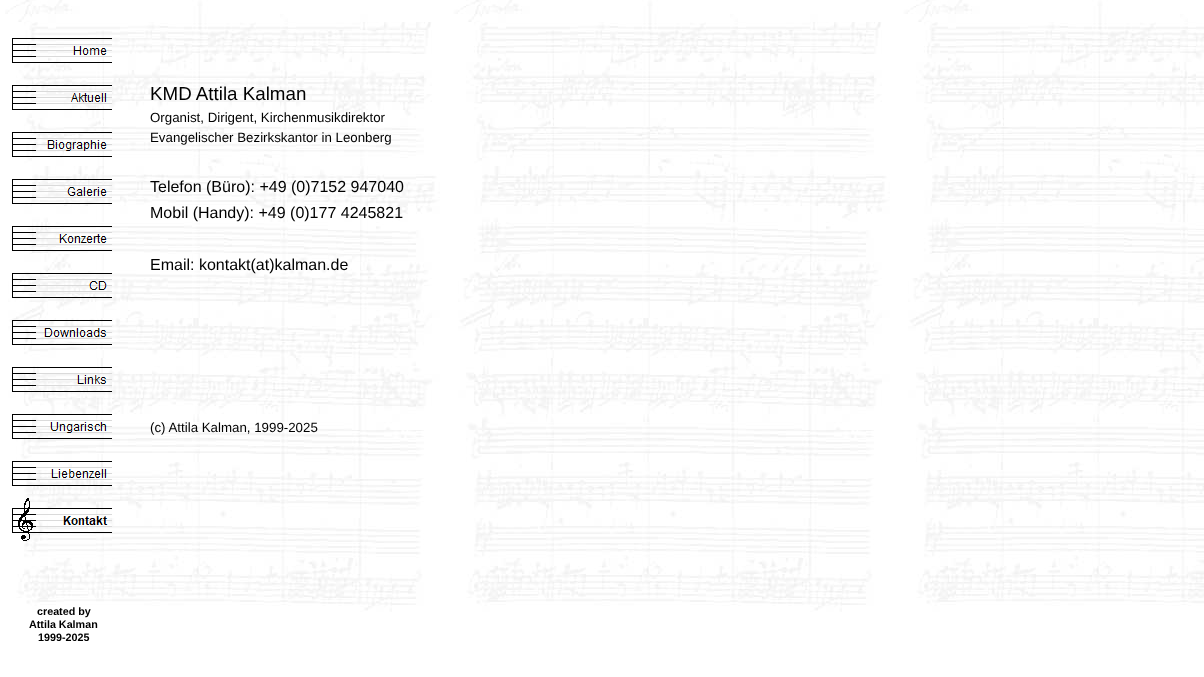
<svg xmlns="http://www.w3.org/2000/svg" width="1204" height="677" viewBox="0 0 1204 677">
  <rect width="100%" height="100%" fill="#fff"/>
  <image x="5" y="0" width="1199" height="612" href="img/1.png"/>
  <image x="12" y="38" width="100" height="25" href="img/2.png"/>
  <image x="12" y="85" width="100" height="25" href="img/3.png"/>
  <image x="12" y="132" width="100" height="25" href="img/4.png"/>
  <image x="12" y="179" width="100" height="25" href="img/5.png"/>
  <image x="12" y="226" width="100" height="25" href="img/6.png"/>
  <image x="12" y="273" width="100" height="25" href="img/7.png"/>
  <image x="12" y="320" width="100" height="25" href="img/8.png"/>
  <image x="12" y="367" width="100" height="25" href="img/9.png"/>
  <image x="12" y="414" width="100" height="25" href="img/10.png"/>
  <image x="12" y="461" width="100" height="25" href="img/11.png"/>
  <image x="12" y="498" width="100" height="43" href="img/12.png"/>
  <text x="150" y="100" font-family="Liberation Sans" font-size="18.75" fill="#000">KMD Attila Kalman</text>
  <g font-family="Liberation Sans" font-size="13.3" fill="#000">
    <text x="150" y="122">Organist, Dirigent, Kirchenmusikdirektor</text>
    <text x="150" y="142">Evangelischer Bezirkskantor in Leonberg</text>
  </g>
  <g font-family="Liberation Sans" font-size="16" fill="#000">
    <text x="150" y="192">Telefon (Büro): +49 (0)7152 947040</text>
    <text x="150" y="218">Mobil (Handy): +49 (0)177 4245821</text>
    <text x="150" y="270">Email: kontakt(at)kalman.de</text>
  </g>
  <text x="150" y="432" font-family="Liberation Sans" font-size="13.3" fill="#000">(c) Attila Kalman, 1999-2025</text>
  <g font-family="Liberation Sans" font-size="10.75" font-weight="bold" fill="#000">
    <text x="37" y="615">created by</text>
    <text x="29" y="628">Attila Kalman</text>
    <text x="38" y="641">1999-2025</text>
  </g>
</svg>
